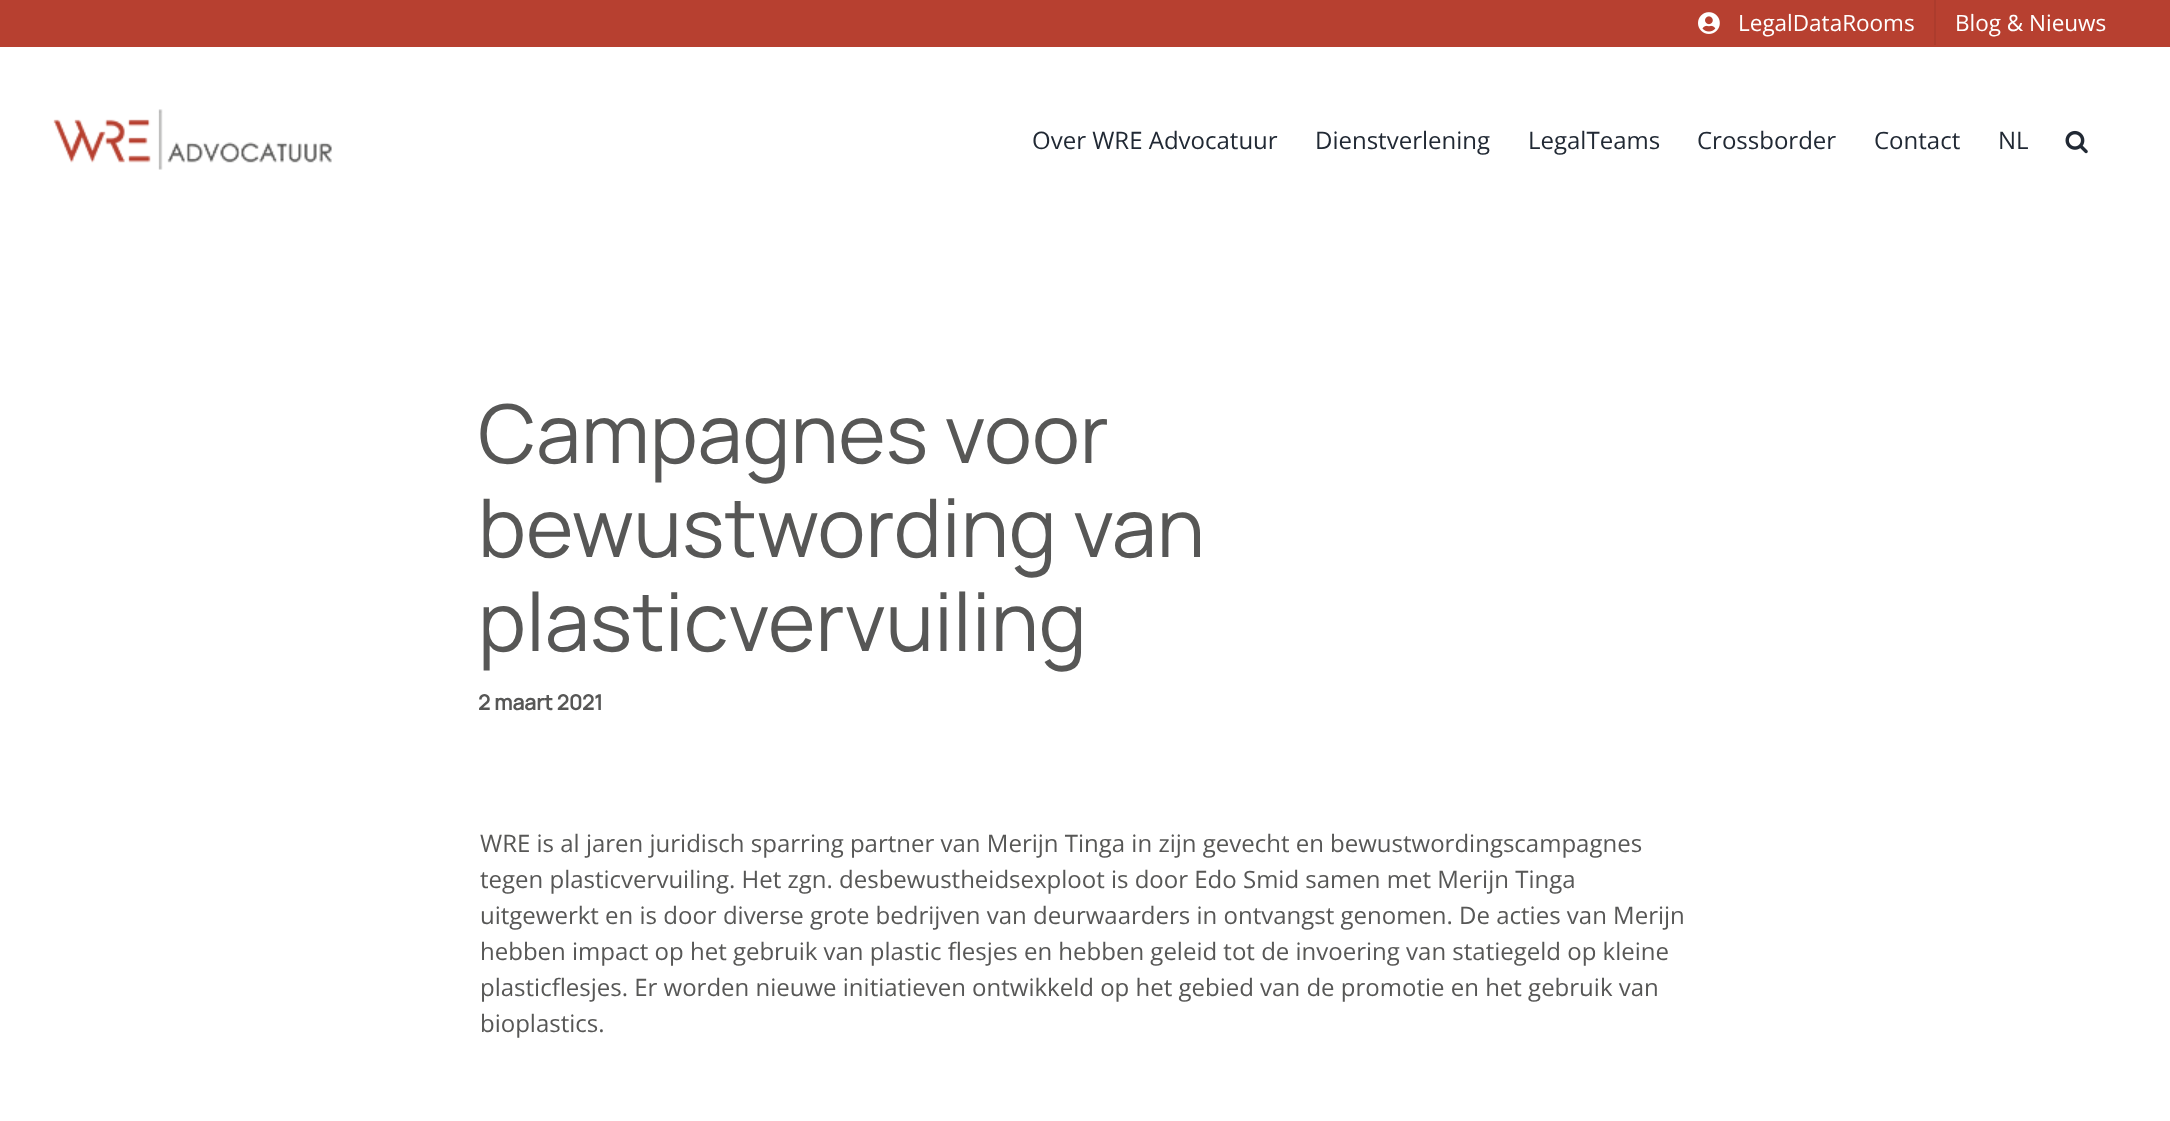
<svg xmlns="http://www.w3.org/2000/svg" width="2170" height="1121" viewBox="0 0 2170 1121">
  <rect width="100%" height="100%" fill="#fff"/>
  <path d="M0 0h2170v47H0z" fill="#b74030"/>
  <image x="1698" y="12" width="22" height="22" href="img/1.png"/>
  <path d="M1934 0h2v45H1934z" fill="#ac3c2d"/>
  <image x="53" y="109" width="279" height="61" href="img/2.png"/>
  <image x="2065" y="130" width="23" height="24" href="img/3.png"/>
  <g font-family="Open Sans" font-size="22.5" fill="#fff">
    <text x="1738" y="31">LegalDataRooms</text>
    <text x="1955" y="31">Blog &amp; Nieuws</text>
  </g>
  <g font-family="Open Sans" font-size="24" fill="#212934">
    <text x="1032" y="149">Over WRE Advocatuur</text>
    <text x="1315" y="149">Dienstverlening</text>
    <text x="1528" y="149">LegalTeams</text>
    <text x="1697" y="149">Crossborder</text>
    <text x="1874" y="149">Contact</text>
    <text x="1998" y="149">NL</text>
  </g>
  <g font-family="Manrope" font-size="81" fill="#575756">
    <text x="478" y="463">Campagnes voor</text>
    <text x="478" y="557">bewustwording van</text>
    <text x="478" y="651">plasticvervuiling</text>
  </g>
  <text x="478" y="710" font-family="Manrope" font-size="21" font-weight="bold" fill="#575756">2 maart 2021</text>
  <g font-family="Open Sans" font-size="24" fill="#575756">
    <text x="480" y="852">WRE is al jaren juridisch sparring partner van Merijn Tinga in zijn gevecht en bewustwordingscampagnes</text>
    <text x="480" y="888">tegen plasticvervuiling. Het zgn. desbewustheidsexploot is door Edo Smid samen met Merijn Tinga</text>
    <text x="480" y="924">uitgewerkt en is door diverse grote bedrijven van deurwaarders in ontvangst genomen. De acties van Merijn</text>
    <text x="480" y="960">hebben impact op het gebruik van plastic flesjes en hebben geleid tot de invoering van statiegeld op kleine</text>
    <text x="480" y="996">plasticflesjes. Er worden nieuwe initiatieven ontwikkeld op het gebied van de promotie en het gebruik van</text>
    <text x="480" y="1032">bioplastics.</text>
  </g>
</svg>
